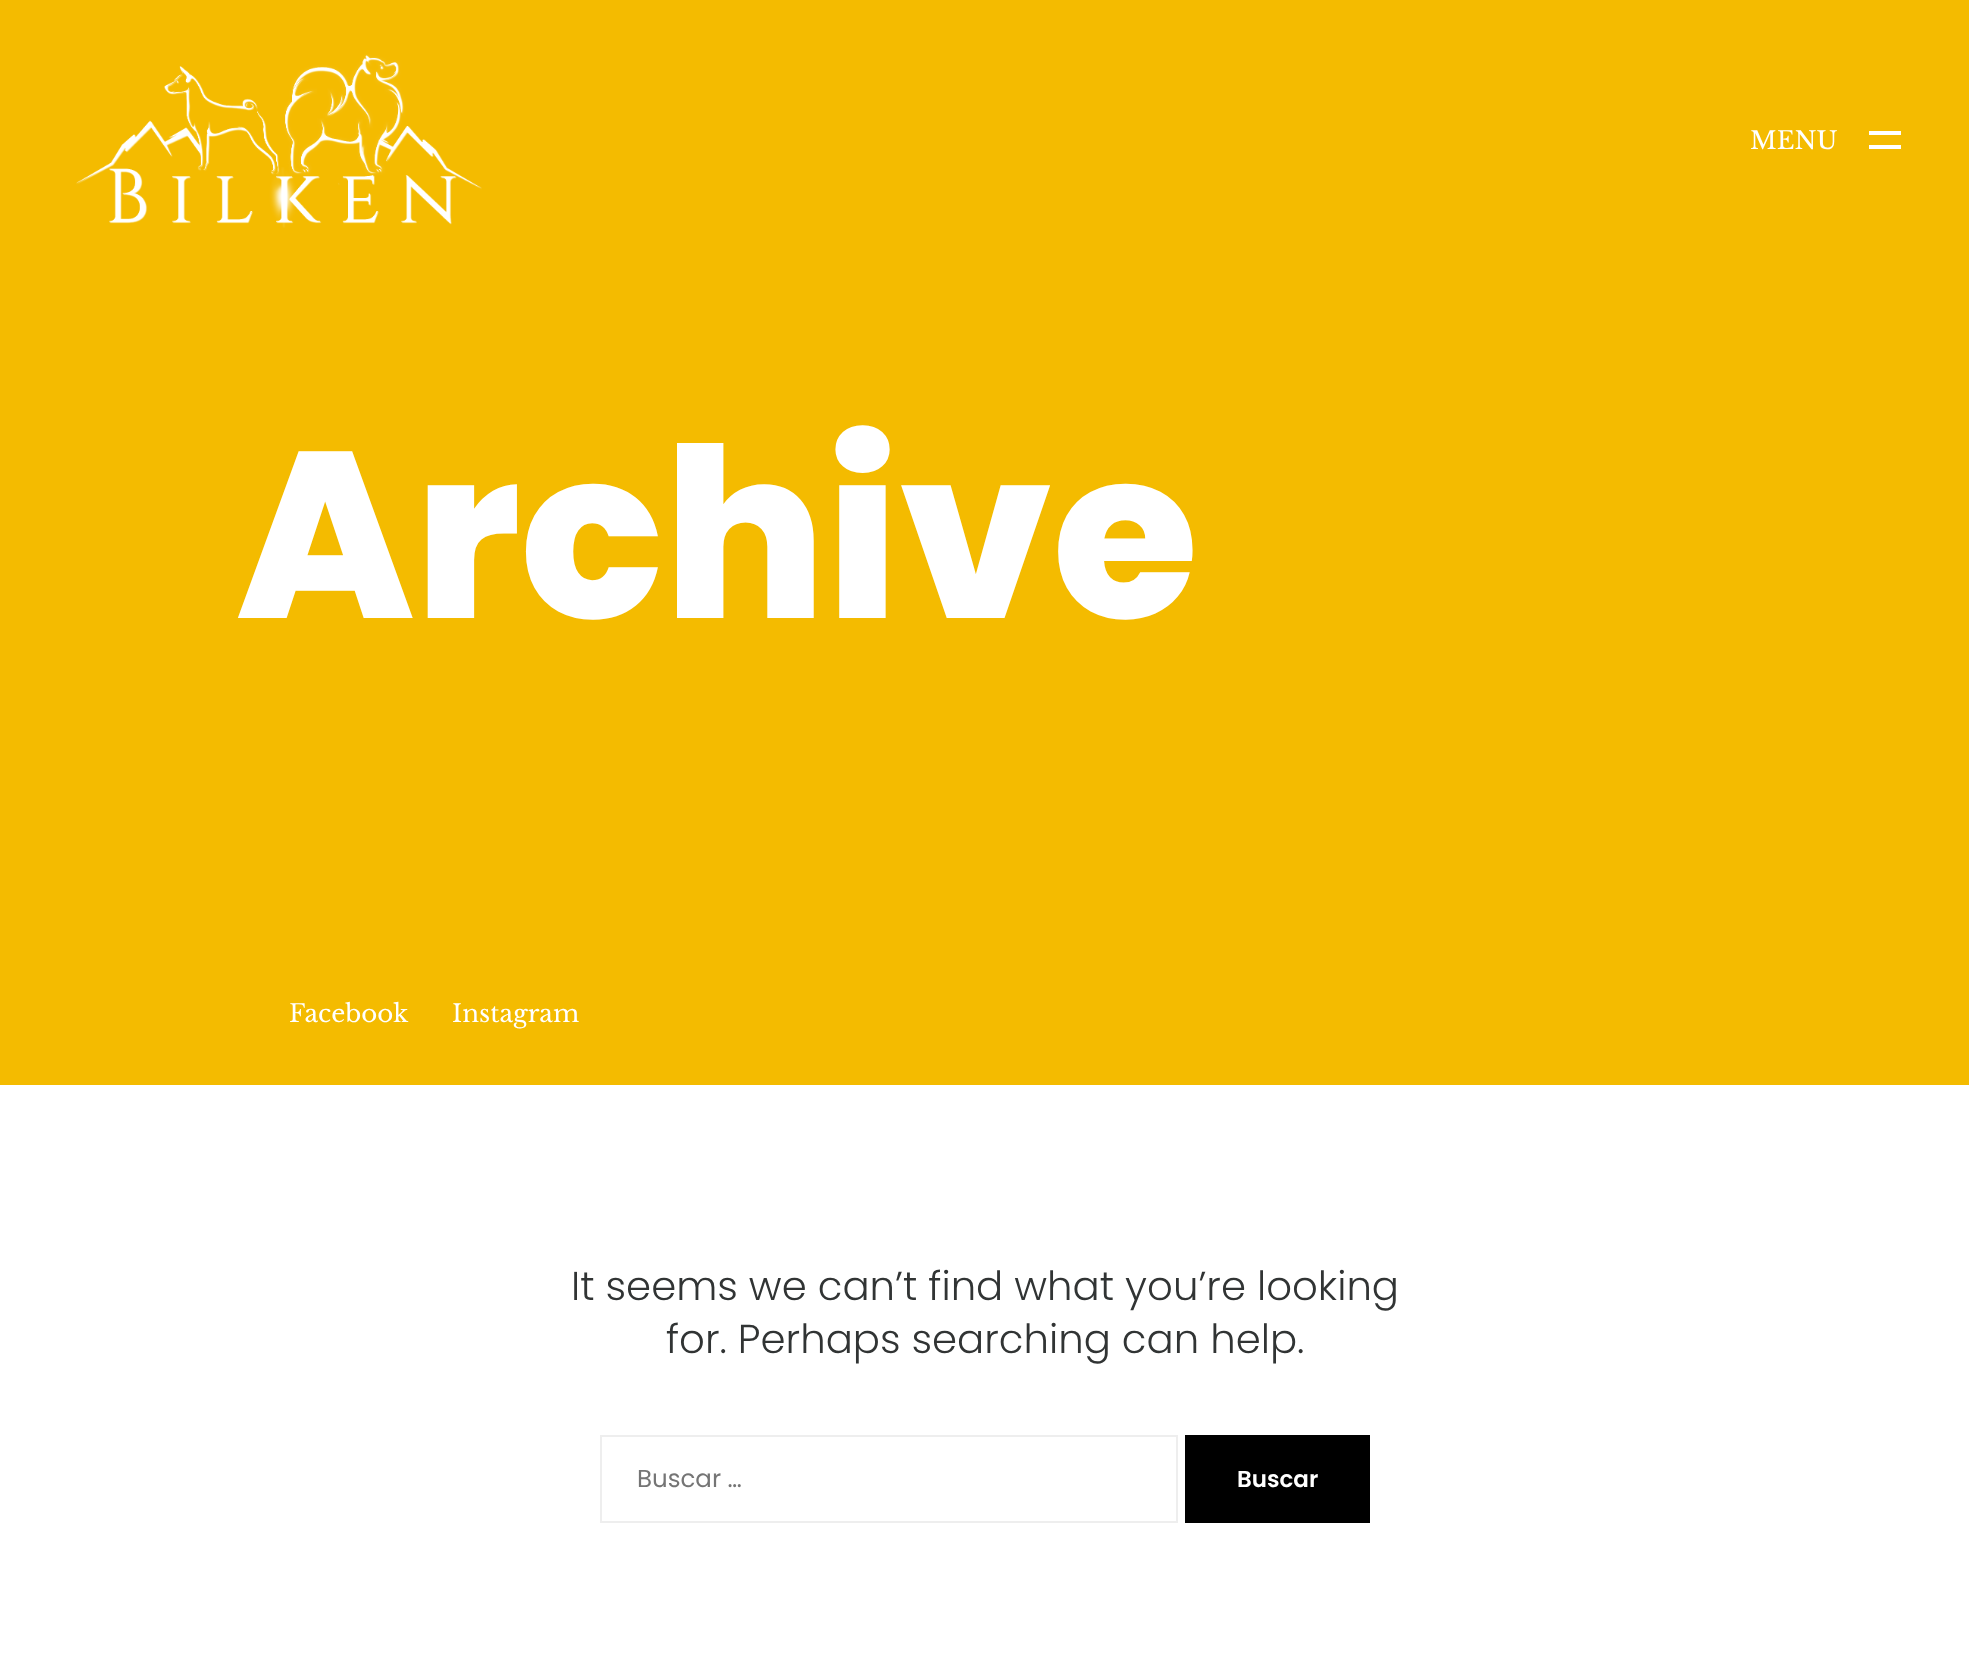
<svg xmlns="http://www.w3.org/2000/svg" width="1969" height="1663" viewBox="0 0 1969 1663">
  <rect width="100%" height="100%" fill="#fff"/>
  <path d="M0 0h1969v1085H0z" fill="#f4bb00"/>
  <image x="76" y="54" width="406" height="174" href="img/1.png"/>
  <path d="M1869 131h32v4H1869z" fill="#fff"/>
  <path d="M1869 145h32v4H1869z" fill="#fff"/>
  <path d="M601 1436h576v86H601z" fill="none" stroke="#eee" stroke-width="2"/>
  <path d="M1185 1435h185v88H1185z" fill="#000"/>
  <text x="1750" y="149" font-family="Libre Baskerville" font-size="24.5" fill="#fff">MENU</text>
  <text x="236" y="618" font-family="Poppins" font-size="236.5" font-weight="800" fill="#fff">Archive</text>
  <g font-family="Libre Baskerville" font-size="24.5" fill="#fff">
    <text x="289" y="1022">Facebook</text>
    <text x="452" y="1022">Instagram</text>
  </g>
  <g font-family="Poppins" font-size="40.25" font-weight="300" fill="#313434">
    <text x="571" y="1300">It seems we can’t find what you’re looking</text>
    <text x="666" y="1353">for. Perhaps searching can help.</text>
  </g>
  <text x="637" y="1487" font-family="Poppins" font-size="24.5" fill="#757575">Buscar …</text>
  <text x="1237" y="1487" font-family="Poppins" font-size="23" font-weight="600" fill="#fff">Buscar</text>
</svg>
